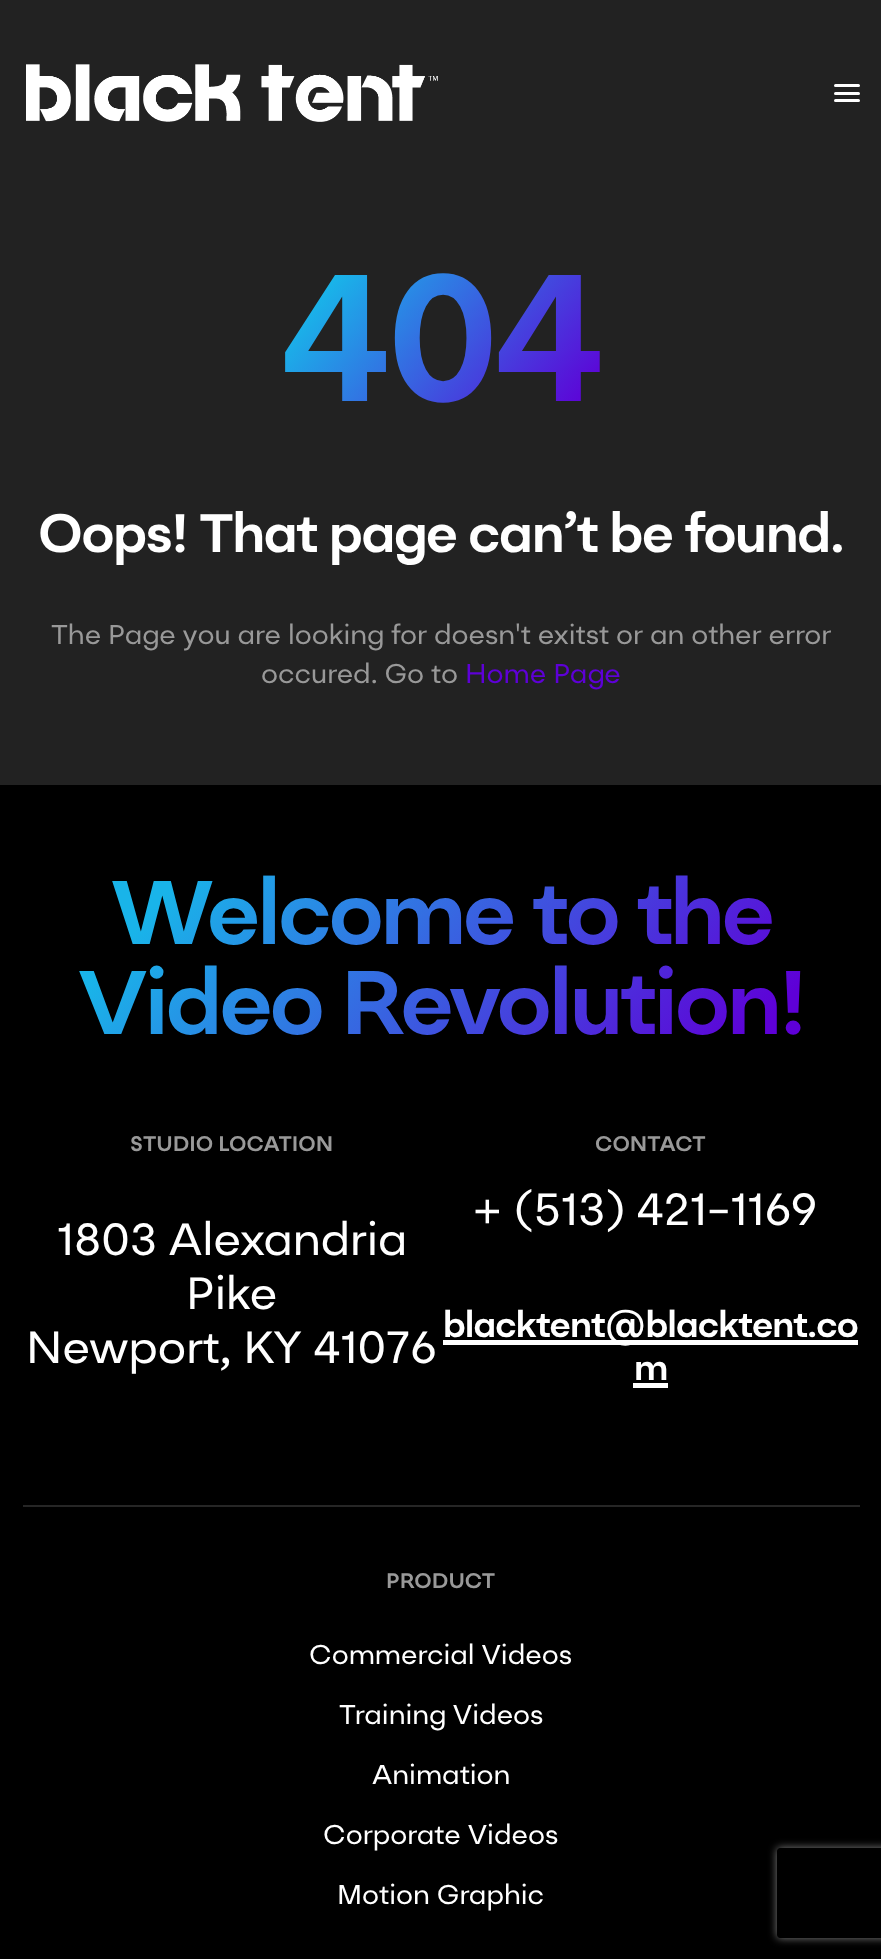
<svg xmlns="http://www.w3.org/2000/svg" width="881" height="1959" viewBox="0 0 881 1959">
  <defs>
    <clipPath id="clip1"><path d="M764 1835H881V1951H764ZM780 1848H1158C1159.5 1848 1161 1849.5 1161 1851V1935C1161 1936.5 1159.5 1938 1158 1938H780C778.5 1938 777 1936.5 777 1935V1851C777 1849.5 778.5 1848 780 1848Z" clip-rule="evenodd"/></clipPath>
    <linearGradient id="g1" gradientUnits="userSpaceOnUse" x1="295" y1="230" x2="587" y2="478"><stop offset="0.16" stop-color="#19b4e9"/><stop offset="0.88" stop-color="#5e00d7"/></linearGradient>
    <linearGradient id="g2" gradientUnits="userSpaceOnUse" x1="154" y1="721" x2="728" y2="1209"><stop offset="0.16" stop-color="#19b4e9"/><stop offset="0.88" stop-color="#5e00d7"/></linearGradient>
  </defs>
  <rect width="100%" height="100%" fill="#222"/>
  <image x="26" y="64" width="412" height="58" href="img/1.png"/>
  <rect x="834" y="84" width="26" height="3" rx="1.5" fill="#fff"/>
  <rect x="834" y="92" width="26" height="3" rx="1.5" fill="#fff"/>
  <rect x="834" y="99" width="26" height="3" rx="1.5" fill="#fff"/>
  <path d="M0 785h881v1174H0z" fill="#000"/>
  <path d="M443 1340h415v5H443z" fill="#fff"/>
  <path d="M633 1383h35v5H633z" fill="#fff"/>
  <path d="M23 1505h837v2H23z" fill="#262626"/>
  <g clip-path="url(#clip1)">
    <rect x="777" y="1848" width="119" height="90" rx="3" fill="#808080" filter="blur(4px)"/>
  </g>
  <text x="281" y="401" font-family="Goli" font-size="180" font-weight="600" letter-spacing="-4.5" fill="url(#g1)">404</text>
  <text x="38" y="552" font-family="Goli" font-size="54" font-weight="600" letter-spacing="-1.35" fill="#fff">Oops! That page can’t be found.</text>
  <g font-family="Goli" font-size="27" fill="#999">
    <text x="51" y="644">The Page you are looking for doesn't exitst or an other error</text>
    <text x="261" y="683">occured. Go to</text>
  </g>
  <text x="465" y="683" font-family="Goli" font-size="27" fill="#5e00d7">Home Page</text>
  <g font-family="Goli" font-size="90" font-weight="600" letter-spacing="-3" fill="url(#g2)">
    <text x="111" y="944">Welcome to the</text>
    <text x="78" y="1034">Video Revolution!</text>
  </g>
  <text x="130" y="1151" font-family="Goli" font-size="21" font-weight="600" fill="#999">STUDIO LOCATION</text>
  <g font-family="Goli" font-size="45" fill="#fff">
    <text x="57" y="1255">1803 Alexandria</text>
    <text x="186" y="1309">Pike</text>
    <text x="26" y="1363">Newport, KY 41076</text>
  </g>
  <text x="595" y="1151" font-family="Goli" font-size="21" font-weight="600" fill="#999">CONTACT</text>
  <text x="472" y="1225" font-family="Goli" font-size="45" fill="#fff">+ (513) 421-1169</text>
  <g font-family="Goli" font-size="36" font-weight="600" letter-spacing="-0.9" fill="#fff">
    <text x="443" y="1337">blacktent@blacktent.co</text>
    <text x="634" y="1380">m</text>
  </g>
  <text x="386" y="1588" font-family="Goli" font-size="21" font-weight="600" fill="#999">PRODUCT</text>
  <g font-family="Goli" font-size="27" fill="#fff">
    <text x="309" y="1664">Commercial Videos</text>
    <text x="339" y="1724">Training Videos</text>
    <text x="372" y="1784">Animation</text>
    <text x="323" y="1844">Corporate Videos</text>
    <text x="337" y="1904">Motion Graphic</text>
  </g>
</svg>
